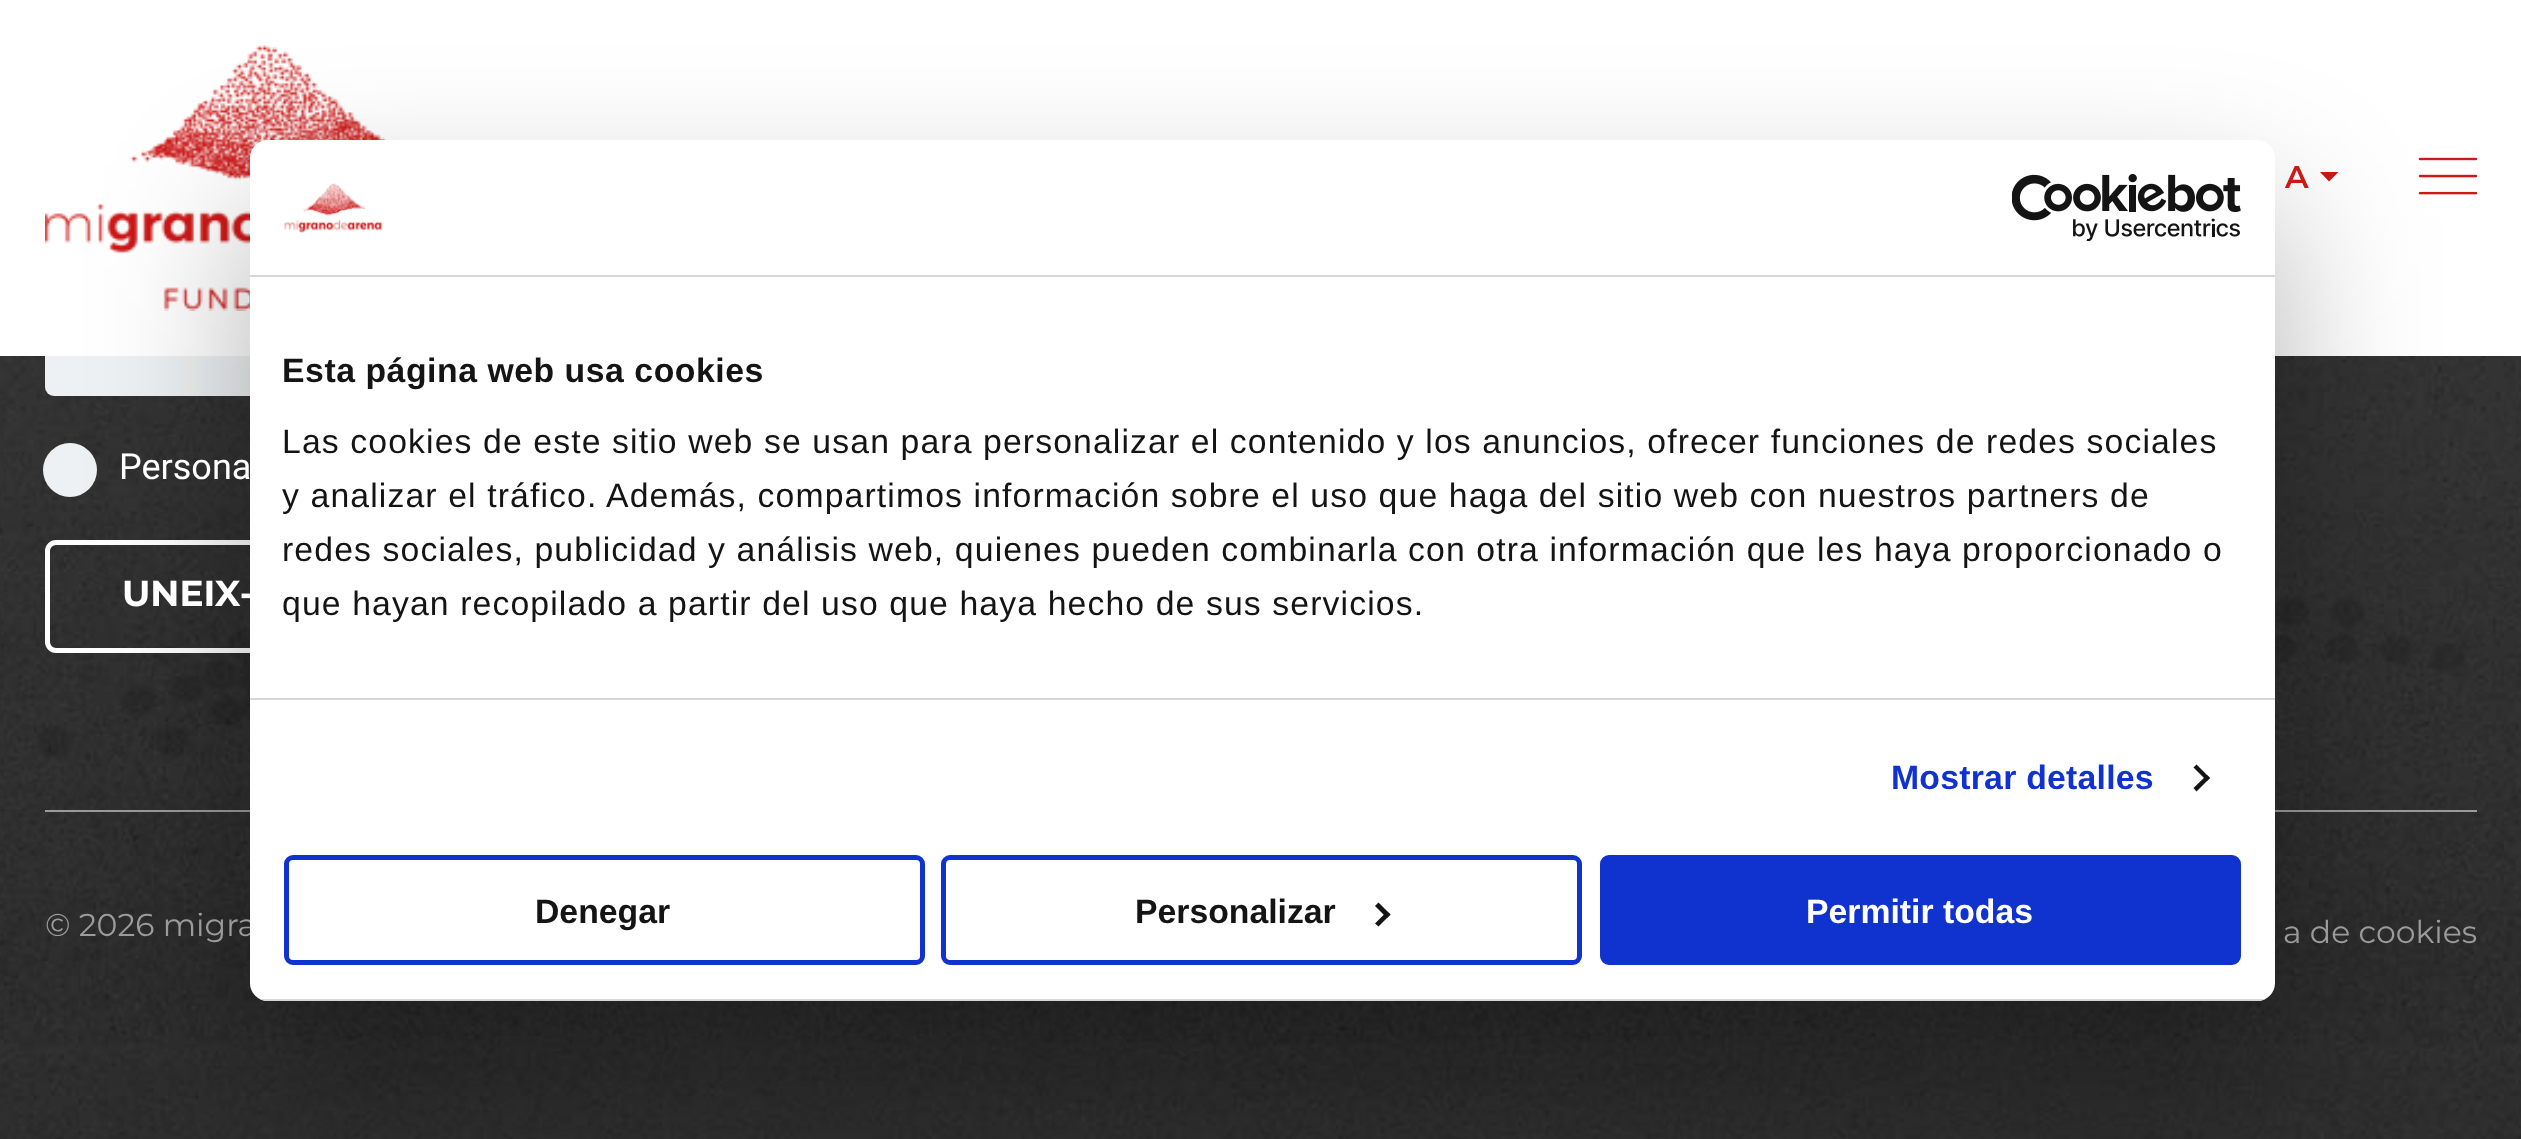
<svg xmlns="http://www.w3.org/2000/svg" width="2521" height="1139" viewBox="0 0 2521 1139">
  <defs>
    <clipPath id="clip1"><rect x="250" y="140" width="2025" height="861" rx="18"/></clipPath>
  </defs>
  <rect width="100%" height="100%" fill="#fff"/>
  <image x="0" y="356" width="2521" height="783" href="img/3.png"/>
  <rect x="45" y="299" width="1195" height="97" rx="9" fill="#eef1f3"/>
  <path d="M45 299h1195v57H45z" fill="#fff"/>
  <image x="45" y="45" width="341" height="266" href="img/1.png"/>
  <path d="M2320 172H2338.5L2329 181.5Z" fill="#cc1817"/>
  <image x="2418" y="157" width="60" height="38" href="img/2.png"/>
  <path d="M45 810h2432v2H45z" fill="#9b9b9b"/>
  <circle cx="70" cy="470" r="27" fill="#eef1f3"/>
  <rect x="47.5" y="542.5" width="335" height="108" rx="8.5" fill="none" stroke="#fff" stroke-width="5"/>
  <rect x="250" y="212" width="2025" height="861" rx="18" fill="#0000004d" filter="blur(76.5px)"/>
  <text x="2285" y="188" font-family="Montserrat" font-size="31.5" font-weight="600" fill="#cc1817">A</text>
  <text x="119" y="479" font-family="Roboto" font-size="36" fill="#fff">Persona</text>
  <text x="122" y="606" font-family="Montserrat" font-size="36" font-weight="bold" fill="#fff">UNEIX-</text>
  <g font-family="Montserrat" font-size="31.5" fill="#9b9b9b">
    <text x="45" y="936">© 2026 migra</text>
    <text x="2283" y="943">a de cookies</text>
  </g>
  <rect x="250" y="140" width="2025" height="861" rx="18" fill="#fff"/>
  <path d="M250 275h2025v2H250z" fill="#d6d6d6"/>
  <image x="284" y="183" width="99" height="50" href="img/4.png"/>
  <image x="2012" y="174" width="229" height="67" href="img/5.png"/>
  <path d="M250 698h2025v2H250z" fill="#d6d6d6"/>
  <text x="282" y="382" font-family="Liberation Sans" font-size="33.75" font-weight="bold" letter-spacing="0.55" fill="#141414">Esta página web usa cookies</text>
  <g font-family="Liberation Sans" font-size="33.75" letter-spacing="1.12" fill="#141414">
    <text x="282" y="453">Las cookies de este sitio web se usan para personalizar el contenido y los anuncios, ofrecer funciones de redes sociales</text>
    <text x="282" y="507">y analizar el tráfico. Además, compartimos información sobre el uso que haga del sitio web con nuestros partners de</text>
    <text x="282" y="561">redes sociales, publicidad y análisis web, quienes pueden combinarla con otra información que les haya proporcionado o</text>
    <text x="282" y="615">que hayan recopilado a partir del uso que haya hecho de sus servicios.</text>
  </g>
  <text x="1891" y="789" font-family="Liberation Sans" font-size="33.75" font-weight="bold" letter-spacing="0.25" fill="#1032cf">Mostrar detalles</text>
  <path d="M2196.5 764.5L2210 778L2207 781L2193.5 767.5Z" fill="#141414"/>
  <path d="M2207 775L2210 778L2196.5 791.5L2193.5 788Z" fill="#141414"/>
  <g clip-path="url(#clip1)">
    <path d="M260 999h2005v2H260z" fill="#d6d6d6"/>
  </g>
  <rect x="286.5" y="857.5" width="636" height="105" rx="6.5" fill="none" stroke="#1032cf" stroke-width="5"/>
  <text x="535" y="923" font-family="Liberation Sans" font-size="33.75" font-weight="bold" fill="#141414">Denegar</text>
  <rect x="943.5" y="857.5" width="636" height="105" rx="6.5" fill="none" stroke="#1032cf" stroke-width="5"/>
  <text x="1135" y="923" font-family="Liberation Sans" font-size="33.75" font-weight="bold" fill="#141414">Personalizar</text>
  <path d="M1378.5 902.5L1390.5 914.5L1387 918L1375 906Z" fill="#141414"/>
  <path d="M1387 911.5L1390.5 914.5L1378.5 926.5L1375 923.5Z" fill="#141414"/>
  <rect x="1602.5" y="857.5" width="636" height="105" rx="6.5" fill="#1032cf" stroke="#1032cf" stroke-width="5"/>
  <text x="1806" y="923" font-family="Liberation Sans" font-size="33.75" font-weight="bold" fill="#fff">Permitir todas</text>
</svg>
